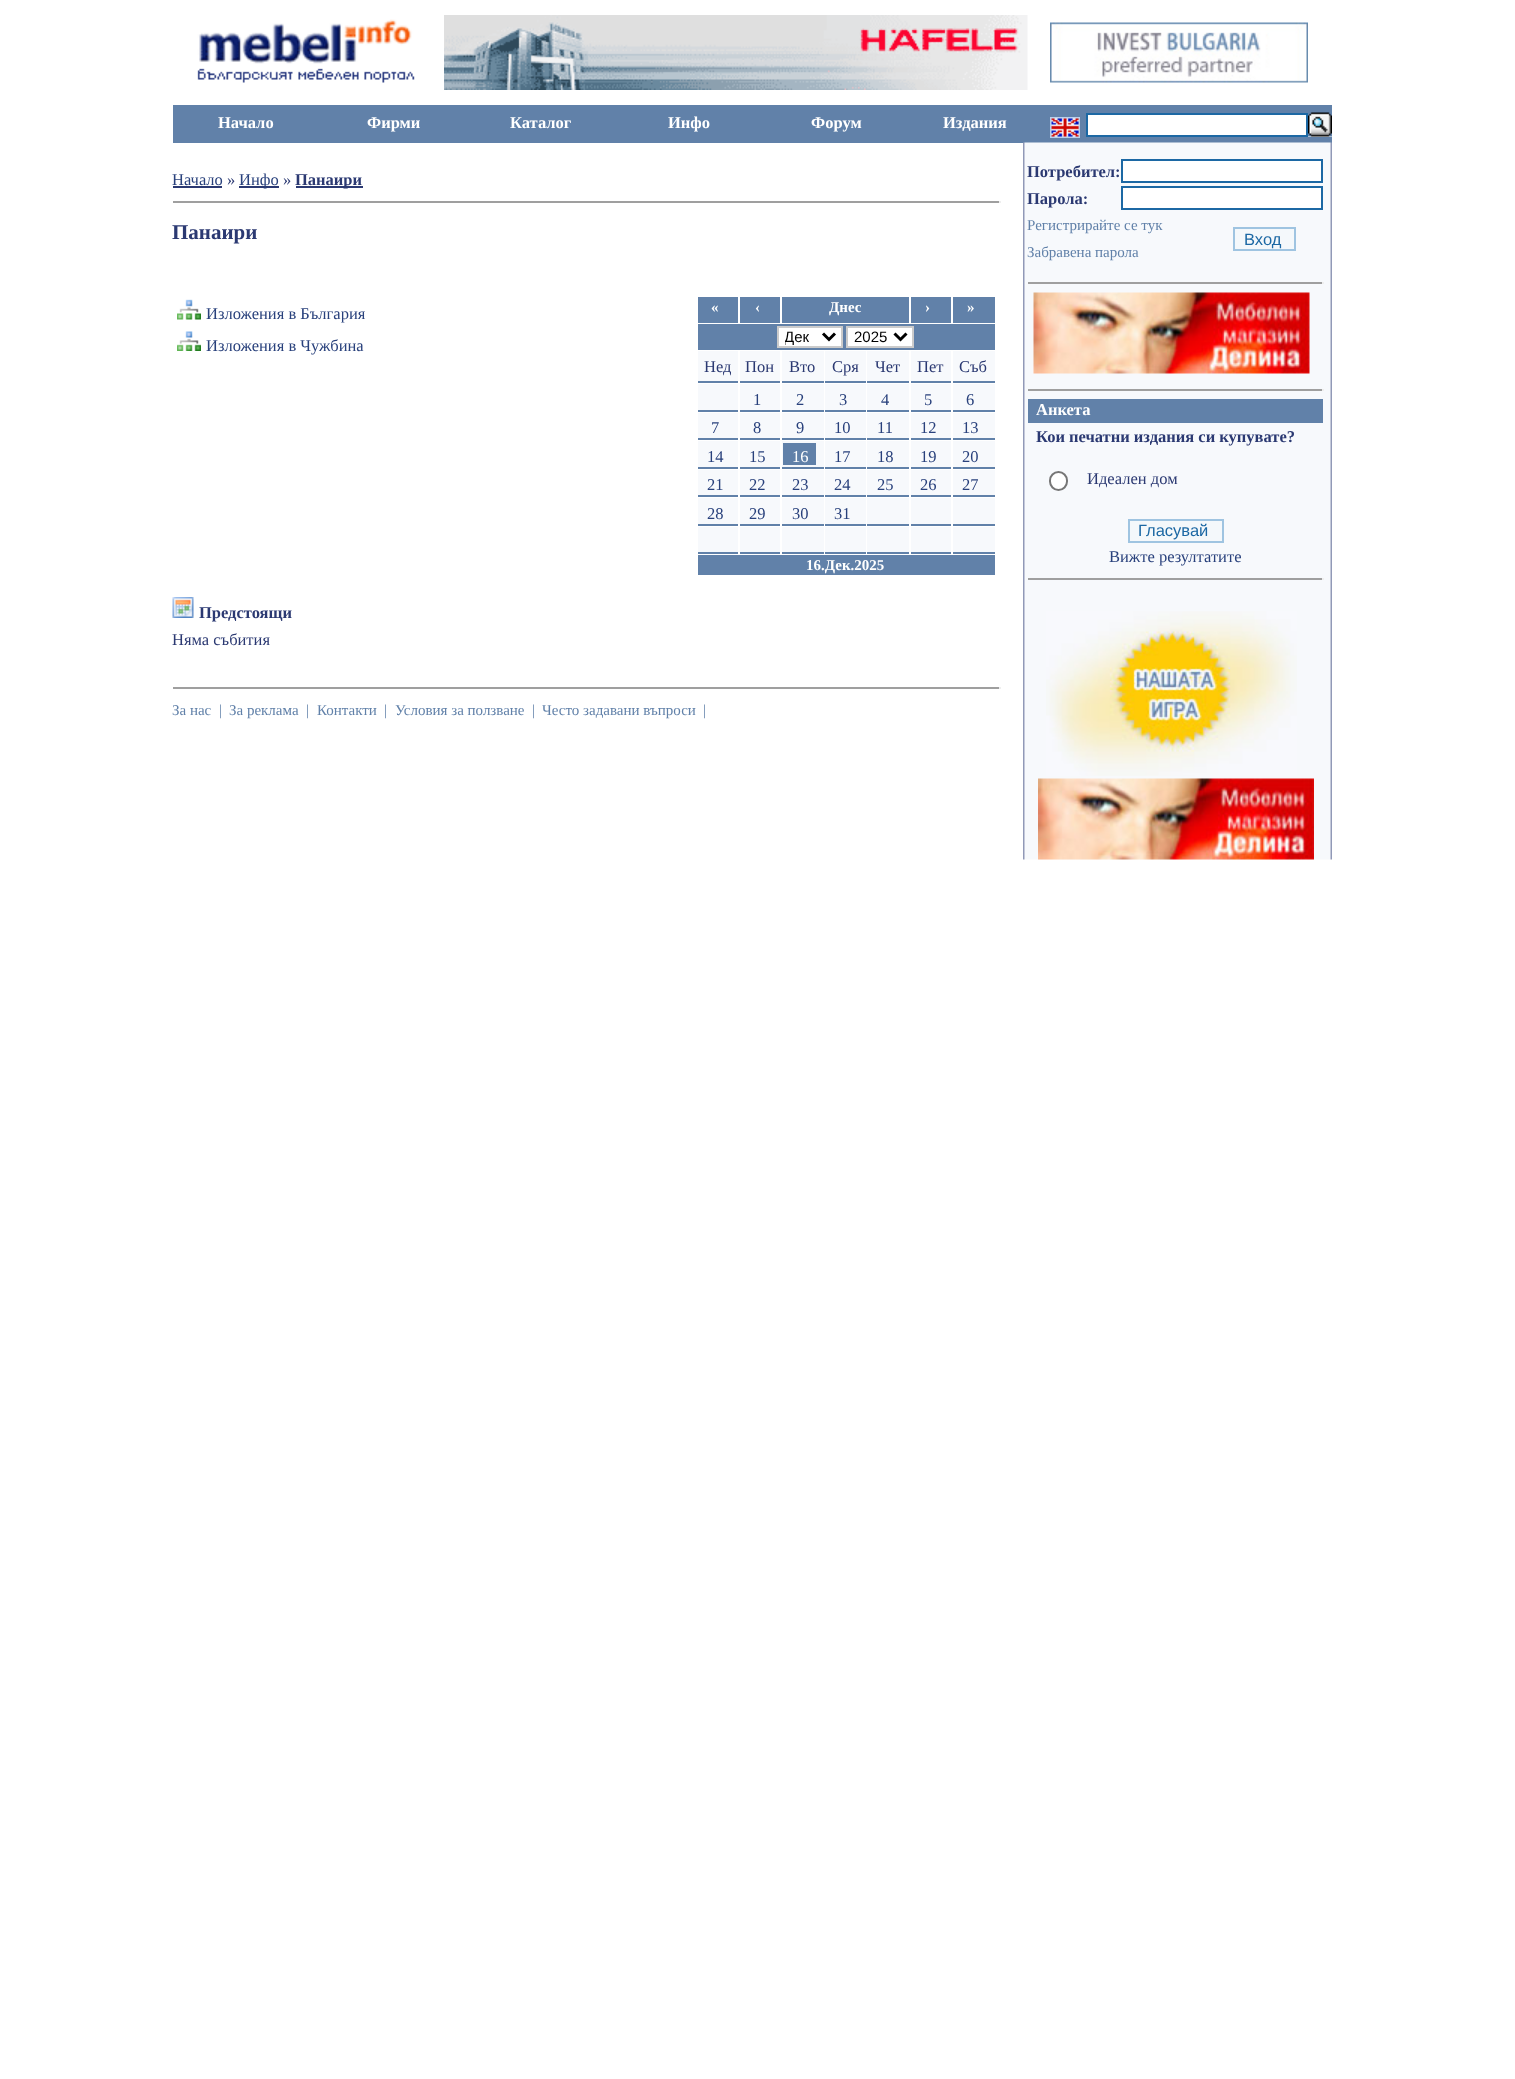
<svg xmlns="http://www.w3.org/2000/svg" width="1515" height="2079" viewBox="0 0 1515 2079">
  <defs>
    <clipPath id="clip1"><path d="M785 327h33v20H785z"/></clipPath>
  </defs>
  <rect width="100%" height="100%" fill="#fff"/>
  <image x="197" y="19" width="218" height="64" href="img/1.png"/>
  <image x="444" y="15" width="584" height="75" href="img/2.png"/>
  <image x="1050" y="22" width="258" height="61" href="img/3.png"/>
  <path d="M173 105h1159v38H173z" fill="#6181a9"/>
  <image x="1050" y="117" width="30" height="21" href="img/4.png"/>
  <path d="M1087 114h220v22H1087z" fill="#fff" stroke="#1c68a4" stroke-width="2"/>
  <path d="M1308 136h24v1H1308z" fill="#f4f8fb"/>
  <image x="1308" y="112" width="24" height="25" href="img/5.png"/>
  <path d="M173 186h49v2H173z" fill="#2b3972"/>
  <path d="M239 186h40v2H239z" fill="#2b3972"/>
  <path d="M296 186h67v2H296z" fill="#2b3972"/>
  <path d="M173 201h828v2H173z" fill="#9f9f9f"/>
  <path d="M999 201h2v2H999z" fill="#eee"/>
  <image x="177" y="299" width="24" height="21" href="img/6.png"/>
  <image x="177" y="331" width="24" height="20" href="img/7.png"/>
  <path d="M698 297h40v26H698z" fill="#6181a9"/>
  <path d="M740 297h40v26H740z" fill="#6181a9"/>
  <path d="M782 297h127v26H782z" fill="#6181a9"/>
  <path d="M911 297h40v26H911z" fill="#6181a9"/>
  <path d="M953 297h42v26H953z" fill="#6181a9"/>
  <path d="M698 324h297v26H698z" fill="#6181a9"/>
  <path d="M778 327h64v20H778z" fill="#fff" stroke="#cbcbcb" stroke-width="2"/>
  <path d="M823 333.5L829 339.5L835 333.5" fill="none" stroke="#000" stroke-width="3"/>
  <path d="M847 327h66v20H847z" fill="#fff" stroke="#cbcbcb" stroke-width="2"/>
  <path d="M894.5 333.5L900.5 339.5L906.5 333.5" fill="none" stroke="#000" stroke-width="3"/>
  <path d="M698 351h40v30H698z" fill="#f7f9fc"/>
  <path d="M698 381h40v2H698z" fill="#6181a9"/>
  <path d="M740 351h40v30H740z" fill="#f7f9fc"/>
  <path d="M740 381h40v2H740z" fill="#6181a9"/>
  <path d="M782 351h42v30H782z" fill="#f7f9fc"/>
  <path d="M782 381h42v2H782z" fill="#6181a9"/>
  <path d="M825 351h41v30H825z" fill="#f7f9fc"/>
  <path d="M825 381h41v2H825z" fill="#6181a9"/>
  <path d="M867 351h42v30H867z" fill="#f7f9fc"/>
  <path d="M867 381h42v2H867z" fill="#6181a9"/>
  <path d="M911 351h40v30H911z" fill="#f7f9fc"/>
  <path d="M911 381h40v2H911z" fill="#6181a9"/>
  <path d="M953 351h42v30H953z" fill="#f7f9fc"/>
  <path d="M953 381h42v2H953z" fill="#6181a9"/>
  <path d="M698 384h40v26H698z" fill="#f7f9fc"/>
  <path d="M698 410h40v2H698z" fill="#6181a9"/>
  <path d="M740 384h40v26H740z" fill="#f7f9fc"/>
  <path d="M740 410h40v2H740z" fill="#6181a9"/>
  <path d="M782 384h42v26H782z" fill="#f7f9fc"/>
  <path d="M782 410h42v2H782z" fill="#6181a9"/>
  <path d="M825 384h41v26H825z" fill="#f7f9fc"/>
  <path d="M825 410h41v2H825z" fill="#6181a9"/>
  <path d="M867 384h42v26H867z" fill="#f7f9fc"/>
  <path d="M867 410h42v2H867z" fill="#6181a9"/>
  <path d="M911 384h40v26H911z" fill="#f7f9fc"/>
  <path d="M911 410h40v2H911z" fill="#6181a9"/>
  <path d="M953 384h42v26H953z" fill="#f7f9fc"/>
  <path d="M953 410h42v2H953z" fill="#6181a9"/>
  <path d="M698 413h40v25H698z" fill="#f7f9fc"/>
  <path d="M698 438h40v2H698z" fill="#6181a9"/>
  <path d="M740 413h40v25H740z" fill="#f7f9fc"/>
  <path d="M740 438h40v2H740z" fill="#6181a9"/>
  <path d="M782 413h42v25H782z" fill="#f7f9fc"/>
  <path d="M782 438h42v2H782z" fill="#6181a9"/>
  <path d="M825 413h41v25H825z" fill="#f7f9fc"/>
  <path d="M825 438h41v2H825z" fill="#6181a9"/>
  <path d="M867 413h42v25H867z" fill="#f7f9fc"/>
  <path d="M867 438h42v2H867z" fill="#6181a9"/>
  <path d="M911 413h40v25H911z" fill="#f7f9fc"/>
  <path d="M911 438h40v2H911z" fill="#6181a9"/>
  <path d="M953 413h42v25H953z" fill="#f7f9fc"/>
  <path d="M953 438h42v2H953z" fill="#6181a9"/>
  <path d="M698 441h40v26H698z" fill="#f7f9fc"/>
  <path d="M698 467h40v2H698z" fill="#6181a9"/>
  <path d="M740 441h40v26H740z" fill="#f7f9fc"/>
  <path d="M740 467h40v2H740z" fill="#6181a9"/>
  <path d="M782 441h42v26H782z" fill="#f7f9fc"/>
  <path d="M782 467h42v2H782z" fill="#6181a9"/>
  <path d="M783 443h33v22H783z" fill="#6181a9"/>
  <path d="M825 441h41v26H825z" fill="#f7f9fc"/>
  <path d="M825 467h41v2H825z" fill="#6181a9"/>
  <path d="M867 441h42v26H867z" fill="#f7f9fc"/>
  <path d="M867 467h42v2H867z" fill="#6181a9"/>
  <path d="M911 441h40v26H911z" fill="#f7f9fc"/>
  <path d="M911 467h40v2H911z" fill="#6181a9"/>
  <path d="M953 441h42v26H953z" fill="#f7f9fc"/>
  <path d="M953 467h42v2H953z" fill="#6181a9"/>
  <path d="M698 470h40v25H698z" fill="#f7f9fc"/>
  <path d="M698 495h40v2H698z" fill="#6181a9"/>
  <path d="M740 470h40v25H740z" fill="#f7f9fc"/>
  <path d="M740 495h40v2H740z" fill="#6181a9"/>
  <path d="M782 470h42v25H782z" fill="#f7f9fc"/>
  <path d="M782 495h42v2H782z" fill="#6181a9"/>
  <path d="M825 470h41v25H825z" fill="#f7f9fc"/>
  <path d="M825 495h41v2H825z" fill="#6181a9"/>
  <path d="M867 470h42v25H867z" fill="#f7f9fc"/>
  <path d="M867 495h42v2H867z" fill="#6181a9"/>
  <path d="M911 470h40v25H911z" fill="#f7f9fc"/>
  <path d="M911 495h40v2H911z" fill="#6181a9"/>
  <path d="M953 470h42v25H953z" fill="#f7f9fc"/>
  <path d="M953 495h42v2H953z" fill="#6181a9"/>
  <path d="M698 498h40v26H698z" fill="#f7f9fc"/>
  <path d="M698 524h40v2H698z" fill="#6181a9"/>
  <path d="M740 498h40v26H740z" fill="#f7f9fc"/>
  <path d="M740 524h40v2H740z" fill="#6181a9"/>
  <path d="M782 498h42v26H782z" fill="#f7f9fc"/>
  <path d="M782 524h42v2H782z" fill="#6181a9"/>
  <path d="M825 498h41v26H825z" fill="#f7f9fc"/>
  <path d="M825 524h41v2H825z" fill="#6181a9"/>
  <path d="M867 498h42v26H867z" fill="#f7f9fc"/>
  <path d="M867 524h42v2H867z" fill="#6181a9"/>
  <path d="M911 498h40v26H911z" fill="#f7f9fc"/>
  <path d="M911 524h40v2H911z" fill="#6181a9"/>
  <path d="M953 498h42v26H953z" fill="#f7f9fc"/>
  <path d="M953 524h42v2H953z" fill="#6181a9"/>
  <path d="M698 527h40v25H698z" fill="#f7f9fc"/>
  <path d="M698 552h40v2H698z" fill="#6181a9"/>
  <path d="M740 527h40v25H740z" fill="#f7f9fc"/>
  <path d="M740 552h40v2H740z" fill="#6181a9"/>
  <path d="M782 527h42v25H782z" fill="#f7f9fc"/>
  <path d="M782 552h42v2H782z" fill="#6181a9"/>
  <path d="M825 527h41v25H825z" fill="#f7f9fc"/>
  <path d="M825 552h41v2H825z" fill="#6181a9"/>
  <path d="M867 527h42v25H867z" fill="#f7f9fc"/>
  <path d="M867 552h42v2H867z" fill="#6181a9"/>
  <path d="M911 527h40v25H911z" fill="#f7f9fc"/>
  <path d="M911 552h40v2H911z" fill="#6181a9"/>
  <path d="M953 527h42v25H953z" fill="#f7f9fc"/>
  <path d="M953 552h42v2H953z" fill="#6181a9"/>
  <path d="M698 555h297v20H698z" fill="#6181a9"/>
  <image x="172" y="597" width="22" height="21" href="img/8.png"/>
  <path d="M173 687h828v2H173z" fill="#9f9f9f"/>
  <path d="M999 687h2v2H999z" fill="#eee"/>
  <image x="1023" y="142" width="309" height="718" href="img/9.png"/>
  <path d="M1122 160h200v22H1122z" fill="#fff" stroke="#1c68a4" stroke-width="2"/>
  <path d="M1122 187h200v22H1122z" fill="#fff" stroke="#1c68a4" stroke-width="2"/>
  <path d="M1234 228h61v22H1234z" fill="#f4f8fb" stroke="#9fc4e1" stroke-width="2"/>
  <path d="M1028 282h295v2H1028z" fill="#9f9f9f"/>
  <path d="M1322 282h2v2H1322z" fill="#eee"/>
  <image x="1033" y="292" width="277" height="82" href="img/10.png"/>
  <path d="M1028 389h295v2H1028z" fill="#9f9f9f"/>
  <path d="M1322 389h2v2H1322z" fill="#eee"/>
  <path d="M1028 399h295v24H1028z" fill="#6181a9"/>
  <rect x="1050" y="472" width="17" height="18" rx="8.5" fill="#fff" stroke="#767676" stroke-width="2"/>
  <path d="M1129 520h94v22H1129z" fill="#f4f8fb" stroke="#9fc4e1" stroke-width="2"/>
  <path d="M1028 578h295v2H1028z" fill="#9f9f9f"/>
  <path d="M1322 578h2v2H1322z" fill="#eee"/>
  <image x="1046" y="611" width="251" height="165" href="img/11.png"/>
  <image x="1038" y="778" width="276" height="82" href="img/12.png"/>
  <g font-family="Liberation Serif" font-size="16.5" font-weight="bold" fill="#fff">
    <text x="218" y="128">Начало</text>
    <text x="367" y="128">Фирми</text>
    <text x="510" y="128">Каталог</text>
    <text x="668" y="128">Инфо</text>
    <text x="811" y="128">Форум</text>
    <text x="943" y="128">Издания</text>
  </g>
  <text x="172" y="185" font-family="Liberation Serif" font-size="16.5" fill="#29417c">Начало</text>
  <text x="227" y="185" font-family="Liberation Serif" font-size="16.5" fill="#2b3972">»</text>
  <text x="239" y="185" font-family="Liberation Serif" font-size="16.5" fill="#29417c">Инфо</text>
  <text x="283" y="185" font-family="Liberation Serif" font-size="16.5" fill="#2b3972">»</text>
  <text x="295" y="185" font-family="Liberation Serif" font-size="16.5" font-weight="bold" fill="#2b3972">Панаири</text>
  <text x="172" y="239" font-family="Liberation Serif" font-size="21" font-weight="bold" fill="#2b3972">Панаири</text>
  <g font-family="Liberation Serif" font-size="16.5" fill="#29417c">
    <text x="206" y="319">Изложения в България</text>
    <text x="206" y="351">Изложения в Чужбина</text>
  </g>
  <g font-family="Liberation Serif" font-size="15" font-weight="bold" fill="#fff">
    <text x="711" y="312">«</text>
    <text x="755" y="312">‹</text>
    <text x="829" y="312">Днес</text>
    <text x="925" y="312">›</text>
    <text x="967" y="312">»</text>
  </g>
  <g clip-path="url(#clip1)">
    <text x="784" y="342" font-family="Liberation Sans" font-size="15" fill="#000">Дек</text>
  </g>
  <text x="854" y="342" font-family="Liberation Sans" font-size="15" fill="#000">2025</text>
  <g font-family="Liberation Serif" font-size="16.5" fill="#2b3972">
    <text x="704" y="372">Нед</text>
    <text x="745" y="372">Пон</text>
    <text x="789" y="372">Вто</text>
    <text x="832" y="372">Сря</text>
    <text x="875" y="372">Чет</text>
    <text x="917" y="372">Пет</text>
    <text x="959" y="372">Съб</text>
  </g>
  <g font-family="Liberation Serif" font-size="16.5" fill="#29417c">
    <text x="753" y="405">1</text>
    <text x="796" y="405">2</text>
    <text x="839" y="405">3</text>
    <text x="881" y="405">4</text>
    <text x="924" y="405">5</text>
    <text x="966" y="405">6</text>
    <text x="711" y="433">7</text>
    <text x="753" y="433">8</text>
    <text x="796" y="433">9</text>
    <text x="834" y="433">10</text>
    <text x="877" y="433">11</text>
    <text x="920" y="433">12</text>
    <text x="962" y="433">13</text>
    <text x="707" y="462">14</text>
    <text x="749" y="462">15</text>
  </g>
  <text x="792" y="462" font-family="Liberation Serif" font-size="16.5" fill="#fff">16</text>
  <g font-family="Liberation Serif" font-size="16.5" fill="#29417c">
    <text x="834" y="462">17</text>
    <text x="877" y="462">18</text>
    <text x="920" y="462">19</text>
    <text x="962" y="462">20</text>
    <text x="707" y="490">21</text>
    <text x="749" y="490">22</text>
    <text x="792" y="490">23</text>
    <text x="834" y="490">24</text>
    <text x="877" y="490">25</text>
    <text x="920" y="490">26</text>
    <text x="962" y="490">27</text>
    <text x="707" y="519">28</text>
    <text x="749" y="519">29</text>
    <text x="792" y="519">30</text>
    <text x="834" y="519">31</text>
  </g>
  <text x="806" y="570" font-family="Liberation Serif" font-size="15" font-weight="bold" fill="#fff">16.Дек.2025</text>
  <text x="199" y="618" font-family="Liberation Serif" font-size="16.5" font-weight="bold" fill="#2b3972">Предстоящи</text>
  <text x="172" y="645" font-family="Liberation Serif" font-size="16.5" fill="#2b3972">Няма събития</text>
  <g font-family="Liberation Serif" font-size="15" fill="#6181a9">
    <text x="172" y="715">За нас</text>
    <text x="219" y="715">|</text>
    <text x="229" y="715">За реклама</text>
    <text x="306" y="715">|</text>
    <text x="317" y="715">Контакти</text>
    <text x="384" y="715">|</text>
    <text x="395" y="715">Условия за ползване</text>
    <text x="532" y="715">|</text>
    <text x="542" y="715">Често задавани въпроси</text>
    <text x="703" y="715">|</text>
  </g>
  <g font-family="Liberation Serif" font-size="16.5" font-weight="bold" fill="#2b3972">
    <text x="1027" y="177">Потребител:</text>
    <text x="1027" y="204">Парола:</text>
  </g>
  <g font-family="Liberation Serif" font-size="15" fill="#6181a9">
    <text x="1027" y="230">Регистрирайте се тук</text>
    <text x="1027" y="257">Забравена парола</text>
  </g>
  <text x="1244" y="245" font-family="Liberation Sans" font-size="16.5" fill="#1c68a4">Вход</text>
  <text x="1036" y="415" font-family="Liberation Serif" font-size="16.5" font-weight="bold" fill="#fff">Анкета</text>
  <text x="1036" y="442" font-family="Liberation Serif" font-size="16.5" font-weight="bold" fill="#2b3972">Кои печатни издания си купувате?</text>
  <text x="1087" y="484" font-family="Liberation Serif" font-size="16.5" fill="#2b3972">Идеален дом</text>
  <text x="1138" y="536" font-family="Liberation Sans" font-size="16.5" fill="#1c68a4">Гласувай</text>
  <text x="1109" y="562" font-family="Liberation Serif" font-size="16.5" fill="#29417c">Вижте резултатите</text>
</svg>
